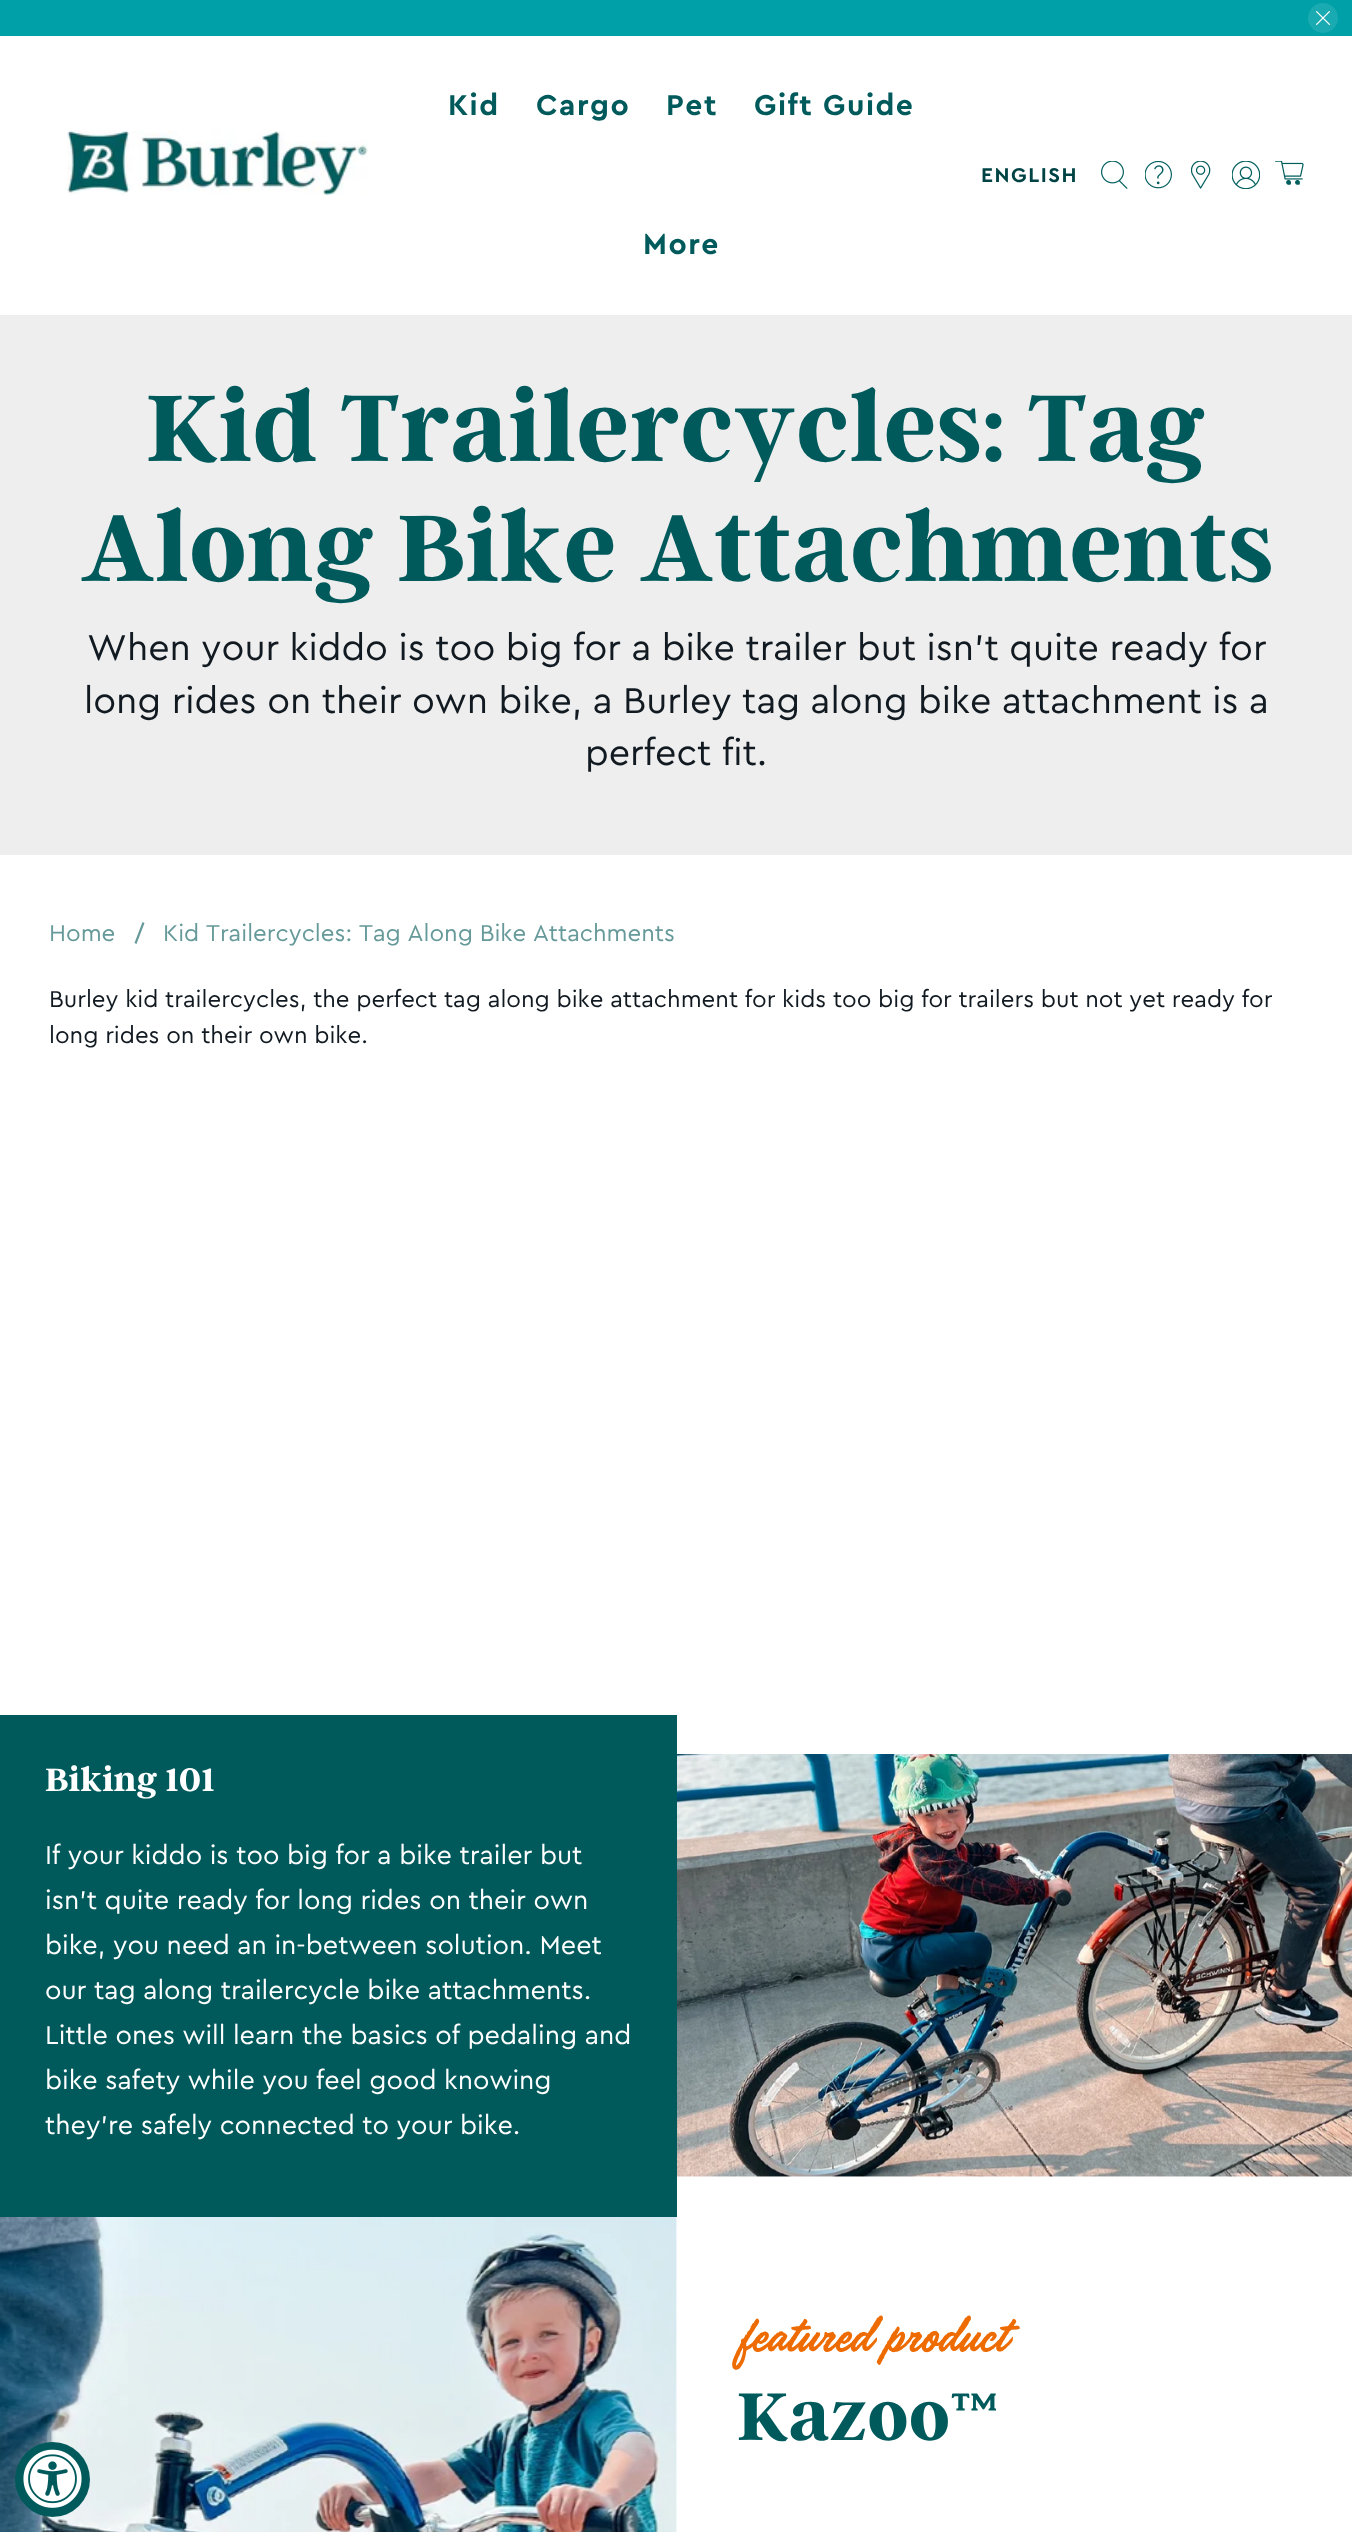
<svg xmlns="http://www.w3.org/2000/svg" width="1352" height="2532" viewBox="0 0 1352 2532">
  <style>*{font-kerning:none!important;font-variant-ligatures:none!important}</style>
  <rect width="100%" height="100%" fill="#fff"/>
  <path d="M0 0h1352v36H0z" fill="#00a0a8"/>
  <circle cx="1323" cy="18" r="15" fill="#1aaab1"/>
  <image x="1316" y="11" width="15" height="15" href="img/1.png"/>
  <image x="67" y="130" width="301" height="65" href="img/2.png"/>
  <image x="1101" y="161" width="27" height="28" href="img/3.png"/>
  <image x="1145" y="161" width="27" height="28" href="img/4.png"/>
  <image x="1191" y="161" width="20" height="28" href="img/5.png"/>
  <image x="1232" y="161" width="28" height="28" href="img/6.png"/>
  <image x="1275" y="161" width="29" height="24" href="img/7.png"/>
  <path d="M0 315h1352v540H0z" fill="#eee"/>
  <path d="M134.5 943L142.5 922L144.5 923L136.5 944Z" fill="#699"/>
  <path d="M0 1715h677v502H0z" fill="#005a5c"/>
  <image x="677" y="1754" width="675" height="423" href="img/8.png"/>
  <image x="0" y="2217" width="677" height="315" href="img/9.png"/>
  <circle cx="52.5" cy="2479.5" r="37.5" fill="#005a5c"/>
  <image x="23" y="2449" width="59" height="59" href="img/10.png"/>
  <g font-family="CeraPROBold" font-size="30" font-weight="bold" letter-spacing="1.5" fill="#005a5c">
    <text x="448" y="115">Kid</text>
    <text x="536" y="115">Cargo</text>
    <text x="666" y="115">Pet</text>
    <text x="754" y="115">Gift Guide</text>
    <text x="643" y="254">More</text>
  </g>
  <text x="981" y="182" font-family="CeraPROBold" font-size="21" font-weight="bold" letter-spacing="1.5" fill="#004345">ENGLISH</text>
  <g font-family="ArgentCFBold" font-size="105" font-weight="bold" fill="#005a5c">
    <text x="146" y="461">Kid Trailercycles:</text>
    <text x="1027" y="461">Tag</text>
    <text x="80" y="581">Along Bike Attachments</text>
  </g>
  <g font-family="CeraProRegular" font-size="37.5" fill="#111921">
    <text x="87" y="660">When your kiddo is too big for a bike trailer but isn't quite ready for</text>
    <text x="84" y="713">long rides on their own bike, a Burley tag along bike attachment is a</text>
    <text x="585" y="765">perfect fit.</text>
  </g>
  <g font-family="CeraProRegular" font-size="24" fill="#699">
    <text x="49" y="941">Home</text>
    <text x="163" y="941">Kid Trailercycles:</text>
    <text x="359" y="941">Tag Along Bike Attachments</text>
  </g>
  <g font-family="CeraProRegular" font-size="24" fill="#111921">
    <text x="49" y="1007">Burley kid trailercycles, the perfect tag along bike attachment for kids too big for trailers but not yet ready for</text>
    <text x="49" y="1043">long rides on their own bike.</text>
  </g>
  <text x="45" y="1791" font-family="ArgentCFBold" font-size="36" font-weight="bold" fill="#fff">Biking 101</text>
  <g font-family="CeraProRegular" font-size="27" fill="#fff">
    <text x="45" y="1864">If your kiddo is too big for a bike trailer but</text>
    <text x="45" y="1909">isn't quite ready for long rides on their own</text>
    <text x="45" y="1954">bike, you need an in-between solution. Meet</text>
    <text x="45" y="1999">our tag along trailercycle bike attachments.</text>
    <text x="45" y="2044">Little ones will learn the basics of pedaling and</text>
    <text x="45" y="2089">bike safety while you feel good knowing</text>
    <text x="45" y="2134">they’re safely connected to your bike.</text>
  </g>
  <text x="737" y="2352" font-family="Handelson" font-size="60" font-weight="100" fill="#ed6b00">featured product</text>
  <text x="737" y="2440" font-family="ArgentCFBold" font-size="75" font-weight="bold" fill="#005a5c">Kazoo™</text>
</svg>
